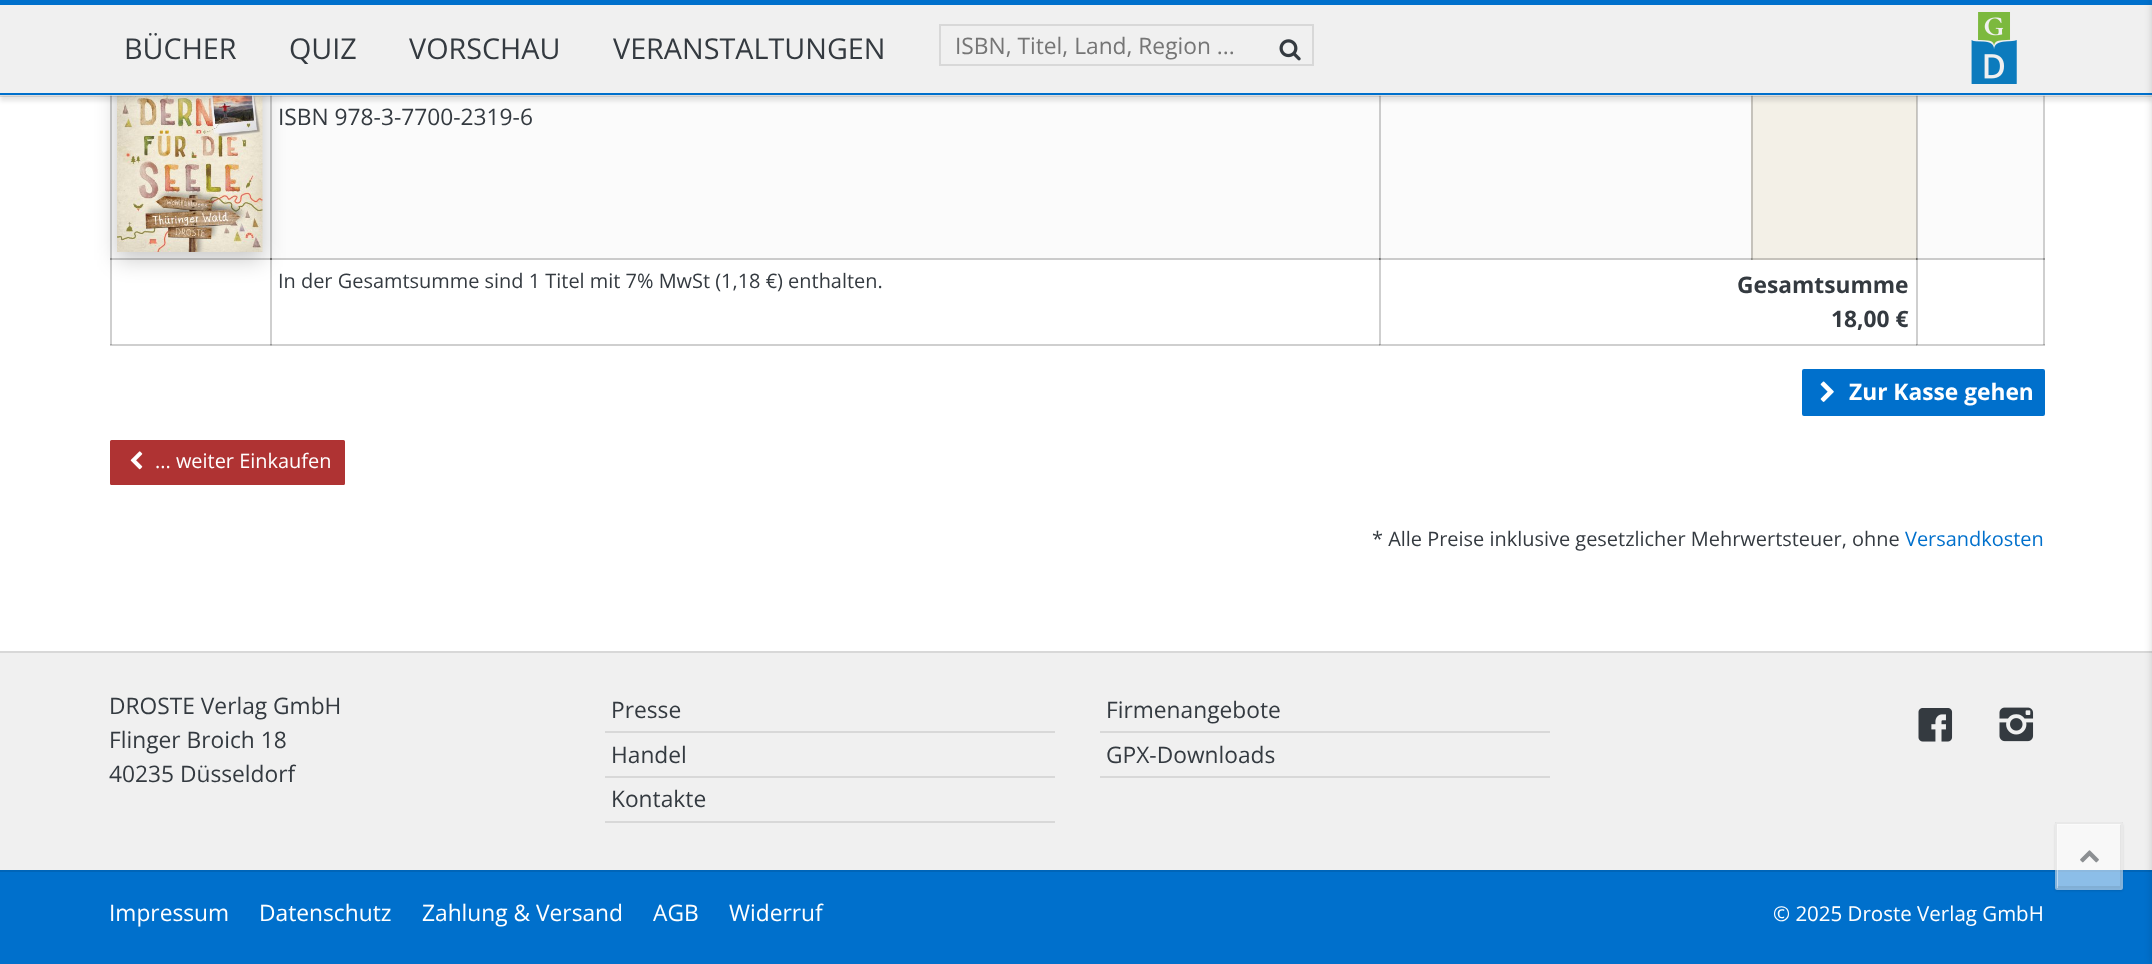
<svg xmlns="http://www.w3.org/2000/svg" width="2152" height="964" viewBox="0 0 2152 964">
  <defs>
    <clipPath id="clip1"><path d="M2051 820H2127V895H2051ZM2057 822H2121C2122 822 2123 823 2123 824V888C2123 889 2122 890 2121 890H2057C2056 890 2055 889 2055 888V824C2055 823 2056 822 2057 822Z" clip-rule="evenodd"/></clipPath>
  </defs>
  <rect width="100%" height="100%" fill="#fff"/>
  <path d="M270 258h2v87H270z" fill="#cfcfcf"/>
  <path d="M1379 258h2v87H1379z" fill="#cfcfcf"/>
  <path d="M1916 258h2v87H1916z" fill="#cfcfcf"/>
  <path d="M110 258h2v87H110z" fill="#cfcfcf"/>
  <path d="M110 344h1935v2H110z" fill="#cfcfcf"/>
  <path d="M270 345h2v1H270z" fill="#bababa"/>
  <path d="M270 344h2v1H270z" fill="#969696"/>
  <path d="M1379 344h1v2H1379z" fill="#bababa"/>
  <path d="M1379 344h2v1H1379z" fill="#a7a7a7"/>
  <path d="M1379 344h1v1H1379z" fill="#969696"/>
  <path d="M1916 344h1v2H1916z" fill="#bababa"/>
  <path d="M1916 344h2v1H1916z" fill="#a7a7a7"/>
  <path d="M1916 344h1v1H1916z" fill="#969696"/>
  <path d="M110 344h2v1H110z" fill="#a7a7a7"/>
  <path d="M2043 95h2v250H2043z" fill="#cfcfcf"/>
  <path d="M112 95h1931v163H112z" fill="#fbfbfb"/>
  <path d="M270 95h2v165H270z" fill="#cbcbcb"/>
  <path d="M1379 95h2v165H1379z" fill="#cbcbcb"/>
  <path d="M1917 95h1v165H1917z" fill="#cbcbcb"/>
  <path d="M110 258h1642v2H110z" fill="#cbcbcb"/>
  <path d="M110 95h2v165H110z" fill="#cbcbcb"/>
  <path d="M270 258h2v2H270z" fill="#6d6d6d"/>
  <path d="M110 258h2v2H110z" fill="#959595"/>
  <path d="M117 36h146v224H117z" fill="#00000033" filter="blur(11px)"/>
  <image x="117" y="95" width="146" height="157" href="img/3.png"/>
  <path d="M1753 95h163v163H1753z" fill="#f3f0e7"/>
  <path d="M1751 95h2v165H1751z" fill="#c5c2bb"/>
  <path d="M1916 258h127v2H1916z" fill="#cbcbcb"/>
  <path d="M1916 258h2v2H1916z" fill="#868686"/>
  <path d="M1916 95h1v165H1916z" fill="#c5c2bb"/>
  <path d="M0 5h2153v96H0z" fill="#0000001a" filter="blur(2px)"/>
  <path d="M0 95h2152v1H0z" fill="#ffffffba"/>
  <path d="M0 0h2152v5H0z" fill="#0070cc"/>
  <path d="M0 95h2152v2H0z" fill="#0000001a"/>
  <path d="M0 5h2152v88H0z" fill="#f0f0f0"/>
  <path d="M0 93h2152v2H0z" fill="#0070cc"/>
  <path d="M940 25h373v40H940z" fill="none" stroke="#d8d8d8" stroke-width="2"/>
  <image x="1279" y="39" width="22" height="22" href="img/1.png"/>
  <image x="1971" y="12" width="46" height="72" href="img/2.png"/>
  <path d="M2043 258h2v2H2043z" fill="#969696"/>
  <path d="M2043 344h2v1H2043z" fill="#a7a7a7"/>
  <path d="M1379 258h2v2H1379z" fill="#868686"/>
  <path d="M1379 258h1v2H1379z" fill="#6d6d6d"/>
  <path d="M1751 258h166v2H1751z" fill="#c5c2bb"/>
  <path d="M1751 258h2v2H1751z" fill="#9f9e97"/>
  <path d="M1751 258h1v2H1751z" fill="#8f8e88"/>
  <path d="M1916 258h1v2H1916z" fill="#686863"/>
  <rect x="1803" y="370" width="241" height="45" rx="1" fill="#0070cc" stroke="#0070cc" stroke-width="2"/>
  <image x="1820" y="381" width="14" height="21" href="img/4.png"/>
  <rect x="111" y="441" width="233" height="43" rx="0.5" fill="#af3333" stroke="#af3333" stroke-width="2"/>
  <image x="130" y="451" width="13" height="19" href="img/5.png"/>
  <path d="M0 653h2152v217H0z" fill="#f0f0f0"/>
  <path d="M0 651h2152v2H0z" fill="#d8d8d8"/>
  <path d="M0 872h2152v92H0z" fill="#0070cc"/>
  <path d="M0 870h2152v2H0z" fill="#0065b8"/>
  <path d="M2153 -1h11v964H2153z" fill="#00000033" filter="blur(4px)"/>
  <path d="M605 731h450v2H605z" fill="#d8d8d8"/>
  <path d="M605 776h450v2H605z" fill="#d8d8d8"/>
  <path d="M605 821h450v2H605z" fill="#d8d8d8"/>
  <path d="M1100 731h450v2H1100z" fill="#d8d8d8"/>
  <path d="M1100 776h450v2H1100z" fill="#d8d8d8"/>
  <image x="1918" y="708" width="35" height="34" href="img/6.png"/>
  <image x="1999" y="707" width="35" height="35" href="img/7.png"/>
  <g clip-path="url(#clip1)">
    <rect x="2055" y="824" width="68" height="67" rx="2" fill="#0000001c" filter="blur(1px)"/>
  </g>
  <rect x="2055" y="822" width="68" height="68" rx="2" fill="#ffffff8c"/>
  <path d="M2057 886V887C2057 888 2057 888 2058 888H2120C2121 888 2121 888 2121 887V825C2121 824 2121 824 2120 824V886Z" fill="#00000014"/>
  <path d="M2059 825H2121C2121 824 2121 824 2120 824H2058C2057 824 2057 824 2057 825V887C2057 888 2057 888 2058 888V826C2058 825 2058 825 2059 825Z" fill="#ffffff70"/>
  <path d="M2056 823h66v66H2056z" fill="none" stroke="#0000000f" stroke-width="2"/>
  <image x="2080" y="850" width="19" height="13" href="img/8.png"/>
  <g font-family="Open Sans" font-size="28.75" fill="#343a40">
    <text x="124" y="59">BÜCHER</text>
    <text x="289" y="59">QUIZ</text>
    <text x="409" y="59">VORSCHAU</text>
    <text x="613" y="59">VERANSTALTUNGEN</text>
  </g>
  <text x="955" y="54" font-family="Open Sans" font-size="22.75" fill="#757575">ISBN, Titel, Land, Region ...</text>
  <text x="278" y="125" font-family="Open Sans" font-size="22.75" fill="#343a40">ISBN 978-3-7700-2319-6</text>
  <text x="278" y="288" font-family="Open Sans" font-size="19.95" fill="#343a40">In der Gesamtsumme sind 1 Titel mit 7% MwSt (1,18 €) enthalten.</text>
  <g font-family="Open Sans" font-size="22.75" font-weight="bold" fill="#343a40">
    <text x="1737" y="293">Gesamtsumme</text>
    <text x="1831" y="327">18,00 €</text>
  </g>
  <text x="1849" y="400" font-family="Open Sans" font-size="22.75" font-weight="bold" fill="#fff">Zur Kasse gehen</text>
  <text x="155" y="468" font-family="Open Sans" font-size="19.95" fill="#fff">... weiter Einkaufen</text>
  <text x="1372" y="546" font-family="Open Sans" font-size="19.95" fill="#343a40">* Alle Preise inklusive gesetzlicher Mehrwertsteuer, ohne</text>
  <text x="1905" y="546" font-family="Open Sans" font-size="19.95" fill="#0070cc">Versandkosten</text>
  <g font-family="Open Sans" font-size="22.75" fill="#343a40">
    <text x="109" y="714">DROSTE Verlag GmbH</text>
    <text x="109" y="748">Flinger Broich 18</text>
    <text x="109" y="782">40235 Düsseldorf</text>
    <text x="611" y="718">Presse</text>
    <text x="611" y="763">Handel</text>
    <text x="611" y="807">Kontakte</text>
    <text x="1106" y="718">Firmenangebote</text>
    <text x="1106" y="763">GPX-Downloads</text>
  </g>
  <g font-family="Open Sans" font-size="22.75" fill="#fff">
    <text x="109" y="921">Impressum</text>
    <text x="259" y="921">Datenschutz</text>
    <text x="422" y="921">Zahlung &amp; Versand</text>
    <text x="653" y="921">AGB</text>
    <text x="729" y="921">Widerruf</text>
  </g>
  <text x="1773" y="921" font-family="Open Sans" font-size="20.5" fill="#fff">© 2025 Droste Verlag GmbH</text>
</svg>
